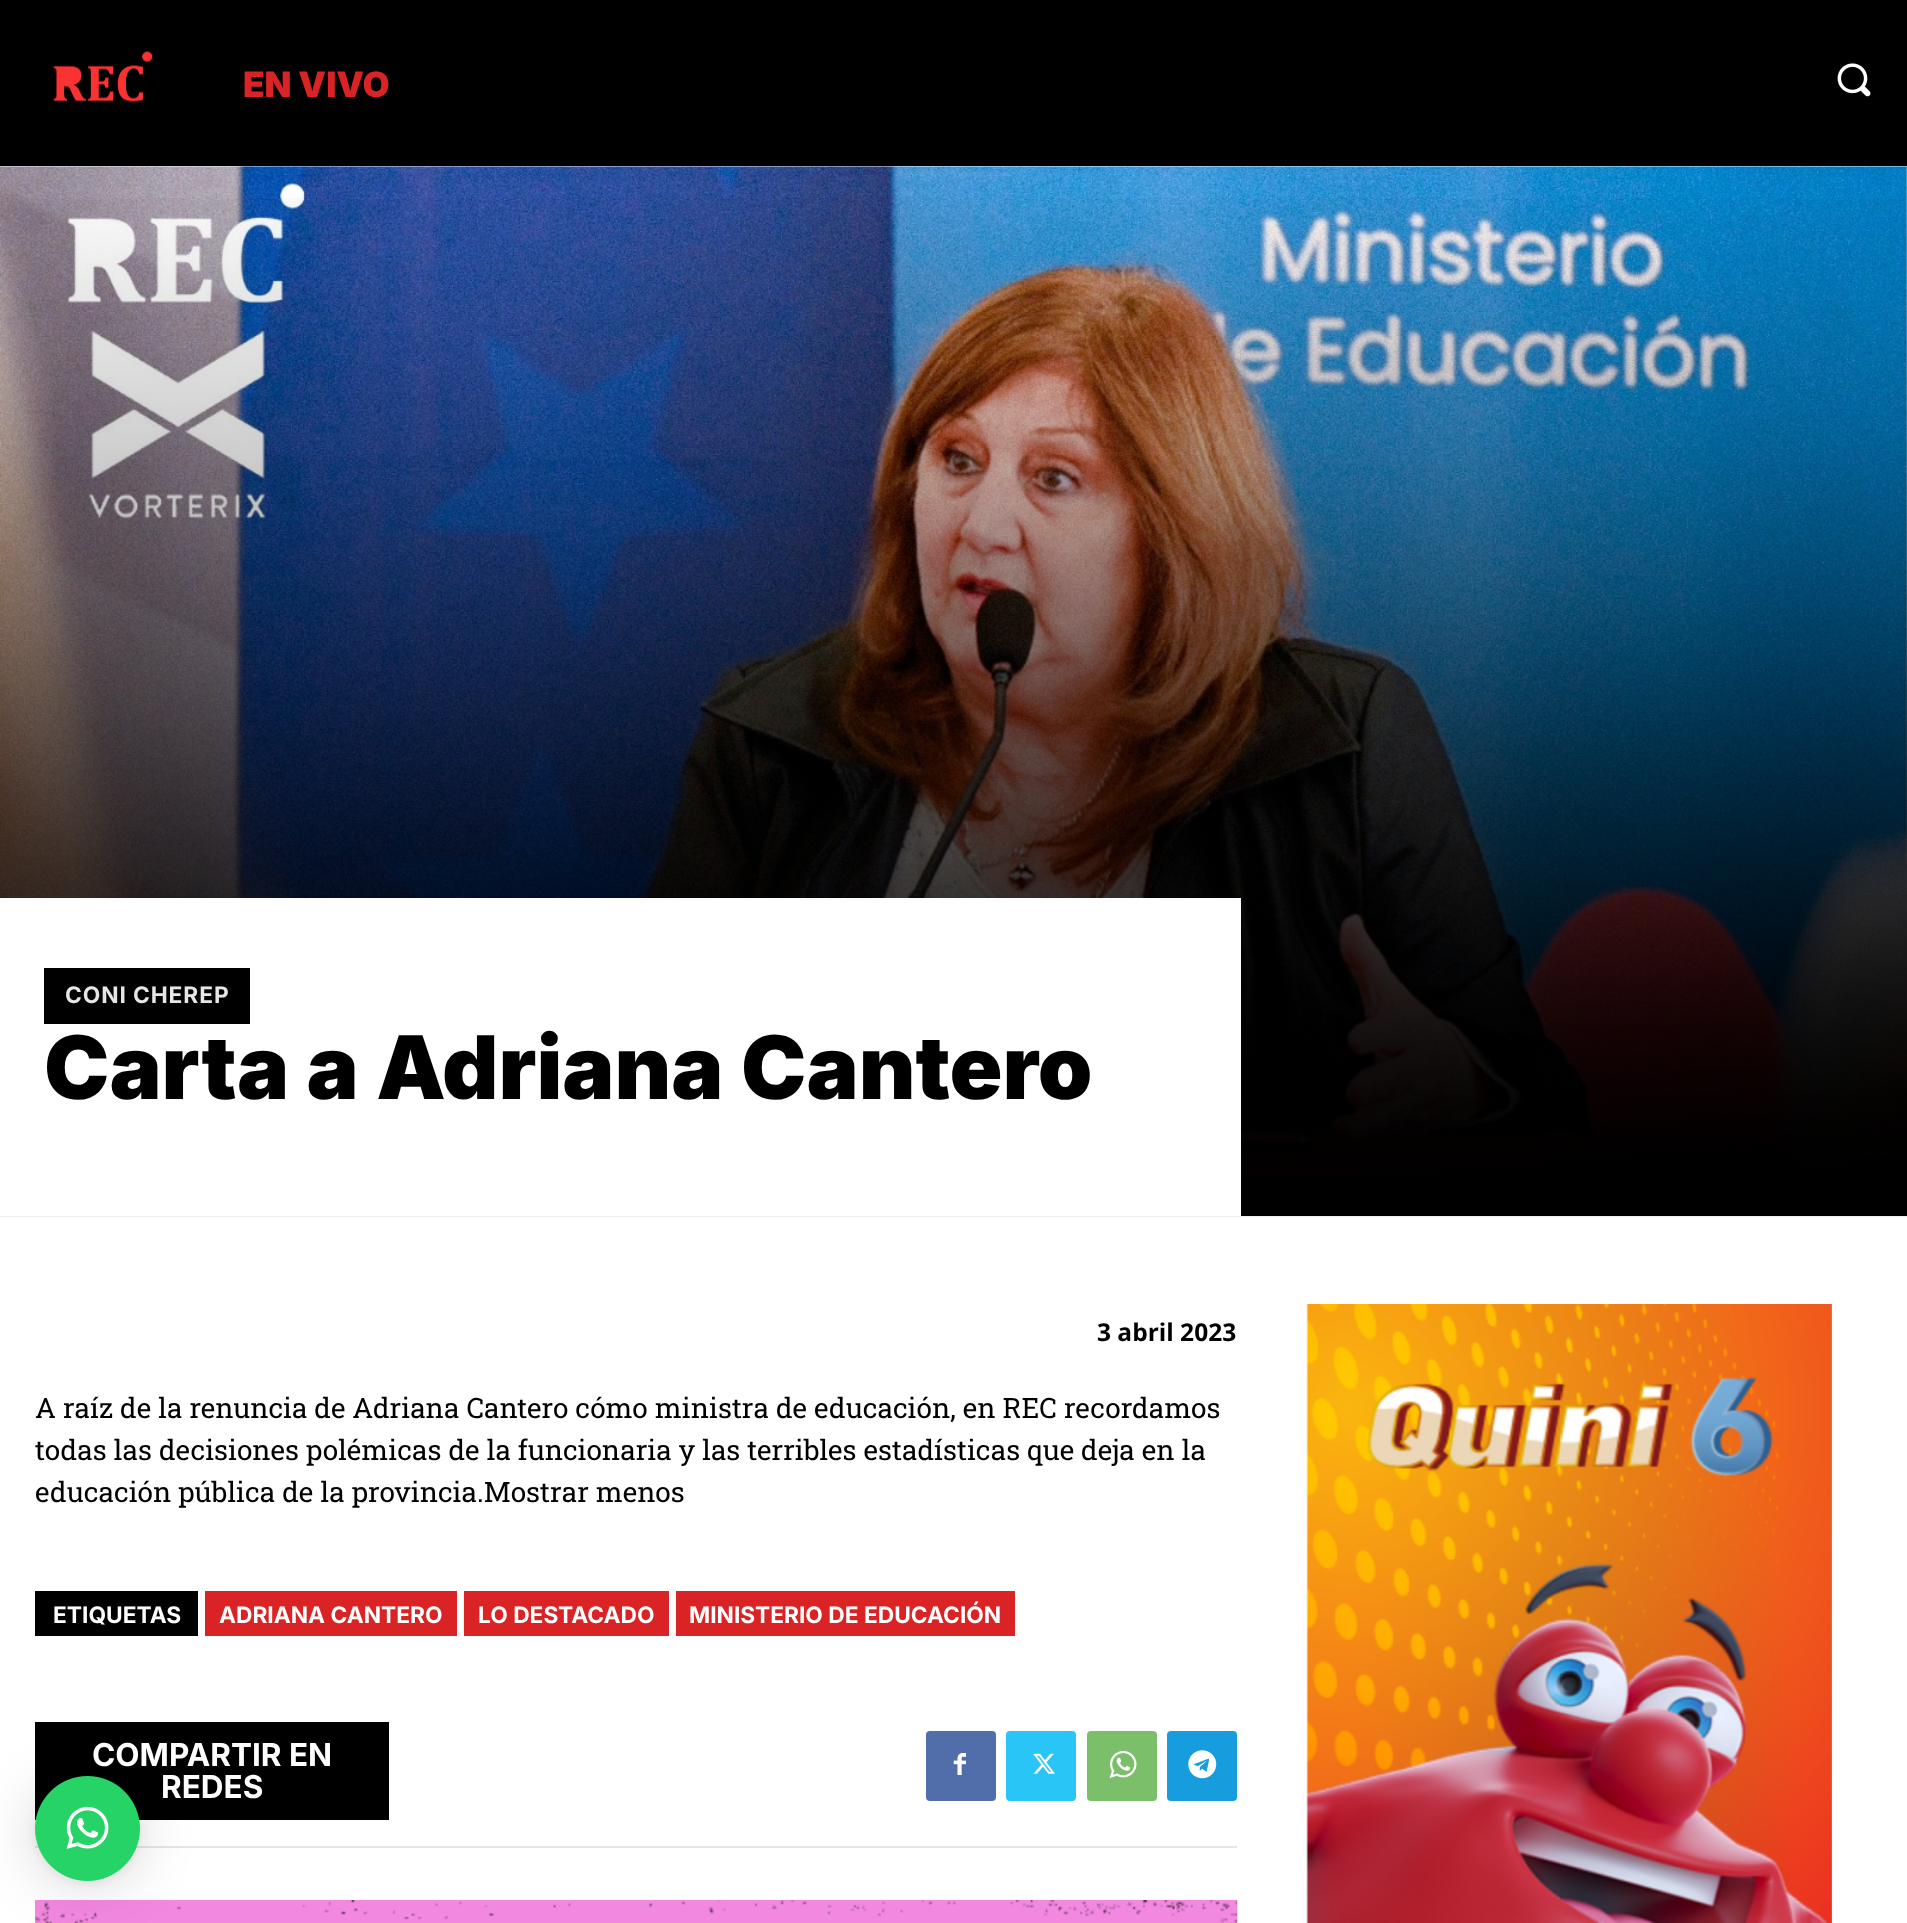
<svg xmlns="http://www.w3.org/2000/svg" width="1907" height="1923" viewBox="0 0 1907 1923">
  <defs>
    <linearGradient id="g1" gradientUnits="userSpaceOnUse" x1="954" y1="166" x2="954" y2="1216"><stop offset="0" stop-color="#000" stop-opacity="0"/><stop offset="1" stop-color="#000" stop-opacity="0.7"/></linearGradient>
  </defs>
  <rect width="100%" height="100%" fill="#fff"/>
  <path d="M0 0h1907v166H0z" fill="#000"/>
  <image x="53" y="51" width="100" height="51" href="img/1.png"/>
  <image x="1837" y="63" width="34" height="34" href="img/2.png"/>
  <image x="0" y="166" width="1907" height="1051" href="img/3.png"/>
  <path d="M0 198h1907v1018H0z" fill="url(#g1)"/>
  <path d="M0 898h1241v318H0z" fill="#fff"/>
  <path d="M44 968h206v56H44z" fill="#000"/>
  <path d="M35 1591h163v45H35z" fill="#000"/>
  <path d="M205 1591h252v45H205z" fill="#d92324"/>
  <path d="M464 1591h205v45H464z" fill="#d92324"/>
  <path d="M676 1591h339v45H676z" fill="#d92324"/>
  <path d="M35 1846h1202v2H35z" fill="#e6e6e6"/>
  <path d="M35 1722h354v98H35z" fill="#000"/>
  <rect x="926" y="1731" width="70" height="70" rx="4" fill="#516eab"/>
  <image x="953" y="1753" width="13" height="22" href="img/4.png"/>
  <rect x="1006" y="1731" width="70" height="70" rx="4" fill="#29c5f6"/>
  <image x="1033" y="1753" width="22" height="21" href="img/5.png"/>
  <rect x="1087" y="1731" width="70" height="70" rx="4" fill="#7bbf6a"/>
  <image x="1109" y="1750" width="28" height="28" href="img/6.png"/>
  <rect x="1167" y="1731" width="70" height="70" rx="4" fill="#179cde"/>
  <image x="1188" y="1750" width="29" height="29" href="img/7.png"/>
  <image x="35" y="1900" width="1203" height="23" href="img/8.png"/>
  <image x="1306" y="1304" width="526" height="619" href="img/9.png"/>
  <rect x="35" y="1780" width="105" height="105" rx="52.5" fill="#00000029" filter="blur(28px)"/>
  <rect x="35" y="1778" width="105" height="105" rx="52.5" fill="#0000000f" filter="blur(5px)"/>
  <circle cx="87.5" cy="1828.5" r="52.5" fill="#25d366"/>
  <image x="66" y="1806" width="43" height="43" href="img/10.png"/>
  <text x="243" y="97" font-family="Inter" font-size="35" font-weight="900" fill="#d92324">EN VIVO</text>
  <text x="65" y="1003" font-family="Inter" font-size="22.75" font-weight="bold" letter-spacing="0.9" fill="#e6e6e6">CONI CHEREP</text>
  <text x="44" y="1099" font-family="Inter" font-size="87.5" font-weight="900" fill="#000">Carta a Adriana Cantero</text>
  <text x="1097" y="1341" font-family="Open Sans" font-size="24.5" font-weight="bold" fill="#000">3 abril 2023</text>
  <g font-family="Roboto Slab" font-size="28" fill="#000">
    <text x="35" y="1418">A raíz de la renuncia de Adriana Cantero cómo ministra de educación, en REC recordamos</text>
    <text x="35" y="1460">todas las decisiones polémicas de la funcionaria y las terribles estadísticas que deja en la</text>
    <text x="35" y="1502">educación pública de la provincia.Mostrar menos</text>
  </g>
  <g font-family="Inter" font-size="22.75" font-weight="bold" fill="#fff">
    <text x="53" y="1623">ETIQUETAS</text>
    <text x="219" y="1623">ADRIANA CANTERO</text>
    <text x="478" y="1623">LO DESTACADO</text>
    <text x="689" y="1623">MINISTERIO DE EDUCACIÓN</text>
  </g>
  <g font-family="Inter" font-size="31.5" font-weight="bold" fill="#fff">
    <text x="92" y="1766">COMPARTIR EN</text>
    <text x="161" y="1798">REDES</text>
  </g>
</svg>
